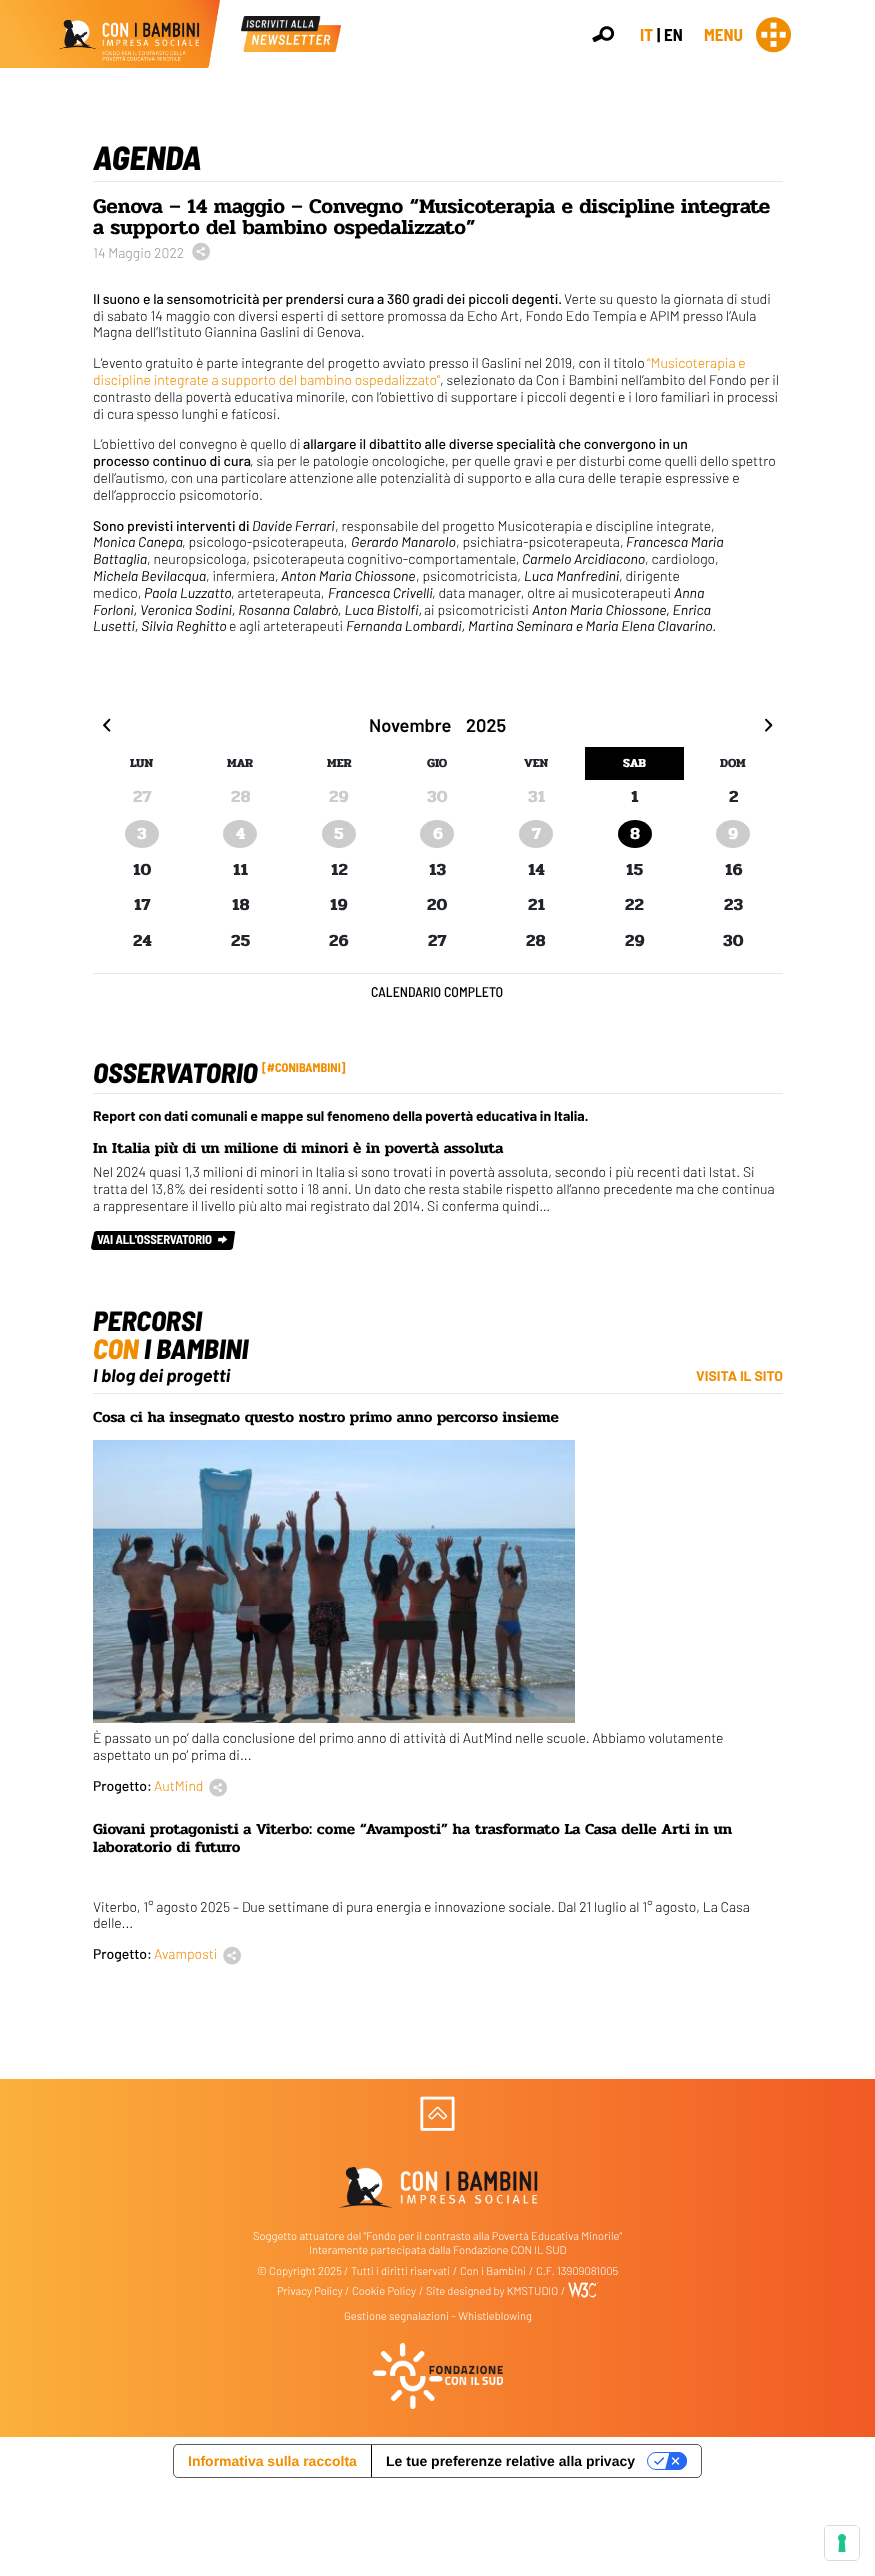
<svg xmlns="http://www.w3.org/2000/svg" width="875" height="2576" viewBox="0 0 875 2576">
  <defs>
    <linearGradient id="g1" gradientUnits="userSpaceOnUse" x1="0" y1="2258" x2="875" y2="2258"><stop offset="0" stop-color="#fbb03b"/><stop offset="1" stop-color="#f15a24"/></linearGradient>
  </defs>
  <rect width="100%" height="100%" fill="#fff"/>
  <image x="0" y="0" width="220" height="68" href="img/1.png"/>
  <image x="241" y="16" width="100" height="36" href="img/2.png"/>
  <image x="592" y="26" width="23" height="17" href="img/3.png"/>
  <image x="756" y="17" width="35" height="36" href="img/4.png"/>
  <path d="M93 181h690v1H93z" fill="#e8e8e8"/>
  <image x="192" y="242" width="18" height="19" href="img/5.png"/>
  <path d="M93 973h690v1H93z" fill="#e8e8e8"/>
  <image x="103" y="718" width="8" height="14" href="img/6.png"/>
  <image x="765" y="718" width="8" height="14" href="img/7.png"/>
  <path d="M585 747h99v33H585z" fill="#000"/>
  <ellipse cx="142" cy="834" rx="17" ry="14" fill="#ccc"/>
  <ellipse cx="240" cy="834" rx="17" ry="14" fill="#ccc"/>
  <ellipse cx="339" cy="834" rx="17" ry="14" fill="#ccc"/>
  <ellipse cx="437" cy="834" rx="17" ry="14" fill="#ccc"/>
  <ellipse cx="536" cy="834" rx="17" ry="14" fill="#ccc"/>
  <ellipse cx="635" cy="834" rx="17" ry="14" fill="#000"/>
  <ellipse cx="733" cy="834" rx="17" ry="14" fill="#ccc"/>
  <path d="M93 1093h690v1H93z" fill="#e8e8e8"/>
  <path d="M97 1231H233C235 1231 236 1232 235 1233L233 1247C233 1249 231 1250 230 1250H94C92 1250 91 1249 91 1247L94 1233C94 1232 95 1231 97 1231Z" fill="#000"/>
  <image x="217" y="1235" width="11" height="9" href="img/8.png"/>
  <path d="M93 1393h690v1H93z" fill="#e8e8e8"/>
  <image x="93" y="1440" width="482" height="283" href="img/9.png"/>
  <image x="209" y="1778" width="18" height="19" href="img/5.png"/>
  <image x="223" y="1946" width="18" height="19" href="img/5.png"/>
  <path d="M0 2079h875v358H0z" fill="url(#g1)"/>
  <image x="420" y="2096" width="35" height="35" href="img/10.png"/>
  <image x="339" y="2167" width="199" height="41" href="img/11.png"/>
  <image x="568" y="2282" width="30" height="16" href="img/12.png"/>
  <image x="373" y="2343" width="130" height="66" href="img/13.png"/>
  <rect x="173.5" y="2444.5" width="528" height="33" rx="4.5" fill="none" stroke="#595959"/>
  <path d="M371 2445h1v32H371z" fill="#000"/>
  <image x="647" y="2452" width="40" height="18" href="img/14.png"/>
  <rect x="824.5" y="2525.5" width="35" height="35" rx="4.5" fill="none" stroke="#d9d9d9"/>
  <rect x="825" y="2526" width="34" height="34" rx="4" fill="#fff"/>
  <image x="838" y="2534" width="8" height="18" href="img/15.png"/>
  <text x="640" y="41" font-family="Barlow Semi Condensed" font-size="17" font-weight="bold" fill="#f08d00">IT</text>
  <g font-family="Barlow Semi Condensed" font-size="17" font-weight="bold" fill="#000">
    <text x="657" y="41">|</text>
    <text x="664" y="41">EN</text>
  </g>
  <text x="704" y="41" font-family="Barlow Semi Condensed" font-size="17" font-weight="bold" fill="#f08d00">MENU</text>
  <text x="93" y="170" font-family="Barlow Semi Condensed" font-size="33.5" font-weight="800" font-style="italic" fill="#000">AGENDA</text>
  <g font-family="Pridi" font-size="21" font-weight="600" fill="#000">
    <text x="93" y="213">Genova – 14 maggio – Convegno “Musicoterapia e discipline integrate</text>
    <text x="93" y="234">a supporto del bambino ospedalizzato”</text>
  </g>
  <text x="93" y="258" font-family="Barlow" font-size="14" font-weight="300" fill="#999">14 Maggio 2022</text>
  <text x="93" y="304" font-family="Barlow" font-size="14" font-weight="500" fill="#000">Il suono e la sensomotricità per prendersi cura a 360 gradi dei piccoli degenti.</text>
  <g font-family="Barlow" font-size="14" font-weight="300" fill="#000">
    <text x="564" y="304">Verte su questo la giornata di studi</text>
    <text x="93" y="321">di sabato 14 maggio con diversi esperti di settore promossa da Echo Art, Fondo Edo Tempia e APIM presso l’Aula</text>
    <text x="93" y="337">Magna dell’Istituto Giannina Gaslini di Genova.</text>
    <text x="93" y="368">L’evento gratuito è parte integrante del progetto avviato presso il Gaslini nel 2019, con il titolo</text>
  </g>
  <g font-family="Barlow" font-size="14" font-weight="300" fill="#f08d00">
    <text x="647" y="368">“Musicoterapia e</text>
    <text x="93" y="385">discipline integrate a supporto del bambino ospedalizzato”</text>
  </g>
  <g font-family="Barlow" font-size="14" font-weight="300" fill="#000">
    <text x="440" y="385">, selezionato da Con i Bambini nell’ambito del Fondo per il</text>
    <text x="93" y="402">contrasto della povertà educativa minorile, con l’obiettivo di supportare i piccoli degenti e i loro familiari in processi</text>
    <text x="93" y="419">di cura spesso lunghi e faticosi.</text>
    <text x="93" y="449">L’obiettivo del convegno è quello di</text>
  </g>
  <g font-family="Barlow" font-size="14" font-weight="500" fill="#000">
    <text x="303" y="449">allargare il dibattito alle diverse specialità che convergono in un</text>
    <text x="93" y="466">processo continuo di cura</text>
  </g>
  <g font-family="Barlow" font-size="14" font-weight="300" fill="#000">
    <text x="250" y="466">, sia per le patologie oncologiche, per quelle gravi e per disturbi come quelli dello spettro</text>
    <text x="93" y="483">dell’autismo, con una particolare attenzione alle potenzialità di supporto e alla cura delle terapie espressive e</text>
    <text x="93" y="500">dell’approccio psicomotorio.</text>
  </g>
  <text x="93" y="531" font-family="Barlow" font-size="14" font-weight="500" fill="#000">Sono previsti interventi di</text>
  <text x="252" y="531" font-family="Barlow" font-size="14" font-style="italic" fill="#000">Davide Ferrari</text>
  <text x="335" y="531" font-family="Barlow" font-size="14" font-weight="300" fill="#000">, responsabile del progetto Musicoterapia e discipline integrate,</text>
  <text x="93" y="547" font-family="Barlow" font-size="14" font-style="italic" fill="#000">Monica Canepa</text>
  <text x="182" y="547" font-family="Barlow" font-size="14" font-weight="300" fill="#000">, psicologo-psicoterapeuta,</text>
  <text x="351" y="547" font-family="Barlow" font-size="14" font-style="italic" fill="#000">Gerardo Manarolo</text>
  <text x="456" y="547" font-family="Barlow" font-size="14" font-weight="300" fill="#000">, psichiatra-psicoterapeuta,</text>
  <g font-family="Barlow" font-size="14" font-style="italic" fill="#000">
    <text x="626" y="547">Francesca Maria</text>
    <text x="93" y="564">Battaglia</text>
  </g>
  <text x="147" y="564" font-family="Barlow" font-size="14" font-weight="300" fill="#000">, neuropsicologa, psicoterapeuta cognitivo-comportamentale,</text>
  <text x="522" y="564" font-family="Barlow" font-size="14" font-style="italic" fill="#000">Carmelo Arcidiacono</text>
  <text x="645" y="564" font-family="Barlow" font-size="14" font-weight="300" fill="#000">, cardiologo,</text>
  <text x="93" y="581" font-family="Barlow" font-size="14" font-style="italic" fill="#000">Michela Bevilacqua</text>
  <text x="206" y="581" font-family="Barlow" font-size="14" font-weight="300" fill="#000">, infermiera,</text>
  <text x="281" y="581" font-family="Barlow" font-size="14" font-style="italic" fill="#000">Anton Maria Chiossone</text>
  <text x="416" y="581" font-family="Barlow" font-size="14" font-weight="300" fill="#000">, psicomotricista,</text>
  <text x="524" y="581" font-family="Barlow" font-size="14" font-style="italic" fill="#000">Luca Manfredini</text>
  <g font-family="Barlow" font-size="14" font-weight="300" fill="#000">
    <text x="619" y="581">, dirigente</text>
    <text x="93" y="598">medico,</text>
  </g>
  <text x="144" y="598" font-family="Barlow" font-size="14" font-style="italic" fill="#000">Paola Luzzatto</text>
  <text x="231" y="598" font-family="Barlow" font-size="14" font-weight="300" fill="#000">, arteterapeuta,</text>
  <text x="328" y="598" font-family="Barlow" font-size="14" font-style="italic" fill="#000">Francesca Crivelli</text>
  <text x="432" y="598" font-family="Barlow" font-size="14" font-weight="300" fill="#000">, data manager, oltre ai musicoterapeuti</text>
  <g font-family="Barlow" font-size="14" font-style="italic" fill="#000">
    <text x="674" y="598">Anna</text>
    <text x="93" y="615">Forloni, Veronica Sodini, Rosanna Calabrò, Luca Bistolfi,</text>
  </g>
  <text x="424" y="615" font-family="Barlow" font-size="14" font-weight="300" fill="#000">ai psicomotricisti</text>
  <g font-family="Barlow" font-size="14" font-style="italic" fill="#000">
    <text x="532" y="615">Anton Maria Chiossone, Enrica</text>
    <text x="93" y="631">Lusetti, Silvia Reghitto</text>
  </g>
  <text x="229" y="631" font-family="Barlow" font-size="14" font-weight="300" fill="#000">e agli arteterapeuti</text>
  <text x="346" y="631" font-family="Barlow" font-size="14" font-style="italic" fill="#000">Fernanda Lombardi, Martina Seminara e Maria Elena Clavarino.</text>
  <g font-family="Barlow" font-size="18.25" font-weight="600" fill="#000">
    <text x="369" y="732">Novembre</text>
    <text x="466" y="732">2025</text>
  </g>
  <g font-family="Pridi" font-size="12.5" font-weight="bold" fill="#212529">
    <text x="130" y="767">LUN</text>
    <text x="227" y="767">MAR</text>
    <text x="327" y="767">MER</text>
    <text x="427" y="767">GIO</text>
    <text x="524" y="767">VEN</text>
  </g>
  <text x="623" y="767" font-family="Pridi" font-size="12.5" font-weight="bold" fill="#fff">SAB</text>
  <text x="720" y="767" font-family="Pridi" font-size="12.5" font-weight="bold" fill="#212529">DOM</text>
  <g font-family="Pridi" font-size="17" font-weight="bold" fill="#ccc">
    <text x="133" y="802">27</text>
    <text x="231" y="802">28</text>
    <text x="329" y="802">29</text>
    <text x="427" y="802">30</text>
    <text x="528" y="802">31</text>
  </g>
  <g font-family="Pridi" font-size="17" font-weight="bold" fill="#212529">
    <text x="631" y="802">1</text>
    <text x="729" y="802">2</text>
  </g>
  <g font-family="Pridi" font-size="17" font-weight="bold" fill="#fff">
    <text x="137" y="839">3</text>
    <text x="236" y="839">4</text>
    <text x="334" y="839">5</text>
    <text x="433" y="839">6</text>
    <text x="532" y="839">7</text>
    <text x="630" y="839">8</text>
    <text x="728" y="839">9</text>
  </g>
  <g font-family="Pridi" font-size="17" font-weight="bold" fill="#212529">
    <text x="133" y="875">10</text>
    <text x="233" y="875">11</text>
    <text x="331" y="875">12</text>
    <text x="429" y="875">13</text>
    <text x="528" y="875">14</text>
    <text x="626" y="875">15</text>
    <text x="725" y="875">16</text>
    <text x="134" y="910">17</text>
    <text x="232" y="910">18</text>
    <text x="330" y="910">19</text>
    <text x="427" y="910">20</text>
    <text x="528" y="910">21</text>
    <text x="625" y="910">22</text>
    <text x="724" y="910">23</text>
    <text x="133" y="946">24</text>
    <text x="231" y="946">25</text>
    <text x="329" y="946">26</text>
    <text x="428" y="946">27</text>
    <text x="526" y="946">28</text>
    <text x="625" y="946">29</text>
    <text x="723" y="946">30</text>
  </g>
  <text x="371" y="997" font-family="Barlow Semi Condensed" font-size="14" font-weight="500" fill="#000">CALENDARIO COMPLETO</text>
  <text x="93" y="1083" font-family="Barlow Semi Condensed" font-size="28" font-weight="800" font-style="italic" fill="#000">OSSERVATORIO</text>
  <text x="262" y="1072" font-family="Barlow Semi Condensed" font-size="12.5" font-weight="bold" fill="#f08d00">[#CONIBAMBINI]</text>
  <text x="93" y="1121" font-family="Barlow" font-size="14" font-weight="bold" fill="#000">Report con dati comunali e mappe sul fenomeno della povertà educativa in Italia.</text>
  <text x="93" y="1153" font-family="Pridi" font-size="15.4" font-weight="600" fill="#000">In Italia più di un milione di minori è in povertà assoluta</text>
  <g font-family="Barlow" font-size="14" font-weight="300" fill="#000">
    <text x="93" y="1177">Nel 2024 quasi 1,3 milioni di minori in Italia si sono trovati in povertà assoluta, secondo i più recenti dati Istat. Si</text>
    <text x="93" y="1194">tratta del 13,8% dei residenti sotto i 18 anni. Un dato che resta stabile rispetto all’anno precedente ma che continua</text>
    <text x="93" y="1211">a rappresentare il livello più alto mai registrato dal 2014. Si conferma quindi…</text>
  </g>
  <text x="97" y="1244" font-family="Barlow Semi Condensed" font-size="12.75" font-weight="bold" letter-spacing="-0.1" fill="#fff">VAI ALL'OSSERVATORIO</text>
  <text x="93" y="1331" font-family="Barlow Semi Condensed" font-size="28" font-weight="800" font-style="italic" fill="#000">PERCORSI</text>
  <text x="93" y="1359" font-family="Barlow Semi Condensed" font-size="28" font-weight="800" font-style="italic" fill="#f08d00">CON</text>
  <text x="144" y="1359" font-family="Barlow Semi Condensed" font-size="28" font-weight="800" font-style="italic" fill="#000">I BAMBINI</text>
  <text x="93" y="1382" font-family="Barlow" font-size="18.25" font-weight="bold" font-style="italic" fill="#000">I blog dei progetti</text>
  <text x="696" y="1381" font-family="Barlow" font-size="14" font-weight="bold" fill="#f08d00">VISITA IL SITO</text>
  <text x="93" y="1422" font-family="Pridi" font-size="15.4" font-weight="600" fill="#000">Cosa ci ha insegnato questo nostro primo anno percorso insieme</text>
  <g font-family="Barlow" font-size="14" font-weight="300" fill="#000">
    <text x="93" y="1743">È passato un po’ dalla conclusione del primo anno di attività di AutMind nelle scuole. Abbiamo volutamente</text>
    <text x="93" y="1760">aspettato un po’ prima di...</text>
  </g>
  <text x="93" y="1791" font-family="Barlow" font-size="14" font-weight="500" fill="#000">Progetto:</text>
  <text x="154" y="1791" font-family="Barlow" font-size="14" font-weight="300" fill="#f08d00">AutMind</text>
  <g font-family="Pridi" font-size="15.4" font-weight="600" fill="#000">
    <text x="93" y="1834">Giovani protagonisti a Viterbo: come “Avamposti” ha trasformato La Casa delle Arti in un</text>
    <text x="93" y="1852">laboratorio di futuro</text>
  </g>
  <g font-family="Barlow" font-size="14" font-weight="300" fill="#000">
    <text x="93" y="1912">Viterbo, 1° agosto 2025 – Due settimane di pura energia e innovazione sociale. Dal 21 luglio al 1° agosto, La Casa</text>
    <text x="93" y="1928">delle...</text>
  </g>
  <text x="93" y="1959" font-family="Barlow" font-size="14" font-weight="500" fill="#000">Progetto:</text>
  <text x="154" y="1959" font-family="Barlow" font-size="14" font-weight="300" fill="#f08d00">Avamposti</text>
  <g font-family="Barlow" font-size="11.2" font-weight="300" fill="#fff">
    <text x="253" y="2240">Soggetto attuatore del “Fondo per il contrasto alla Povertà Educativa Minorile”</text>
    <text x="309" y="2254">Interamente partecipata dalla Fondazione CON IL SUD</text>
    <text x="257" y="2275">© Copyright 2025</text>
    <text x="344" y="2275">/</text>
    <text x="351" y="2275">Tutti i diritti riservati</text>
    <text x="453" y="2275">/</text>
    <text x="460" y="2275">Con i Bambini</text>
    <text x="529" y="2275">/</text>
    <text x="536" y="2275">C.F. 13909081005</text>
    <text x="277" y="2295">Privacy Policy</text>
    <text x="345" y="2295">/</text>
    <text x="352" y="2295">Cookie Policy</text>
    <text x="419" y="2295">/</text>
    <text x="426" y="2295">Site designed by KMSTUDIO</text>
    <text x="561" y="2295">/</text>
    <text x="344" y="2320">Gestione segnalazioni – Whistleblowing</text>
  </g>
  <text x="188" y="2466" font-family="Liberation Sans" font-size="14" font-weight="bold" fill="#f08d00">Informativa sulla raccolta</text>
  <text x="386" y="2466" font-family="Liberation Sans" font-size="14" font-weight="bold" fill="#000">Le tue preferenze relative alla privacy</text>
</svg>
